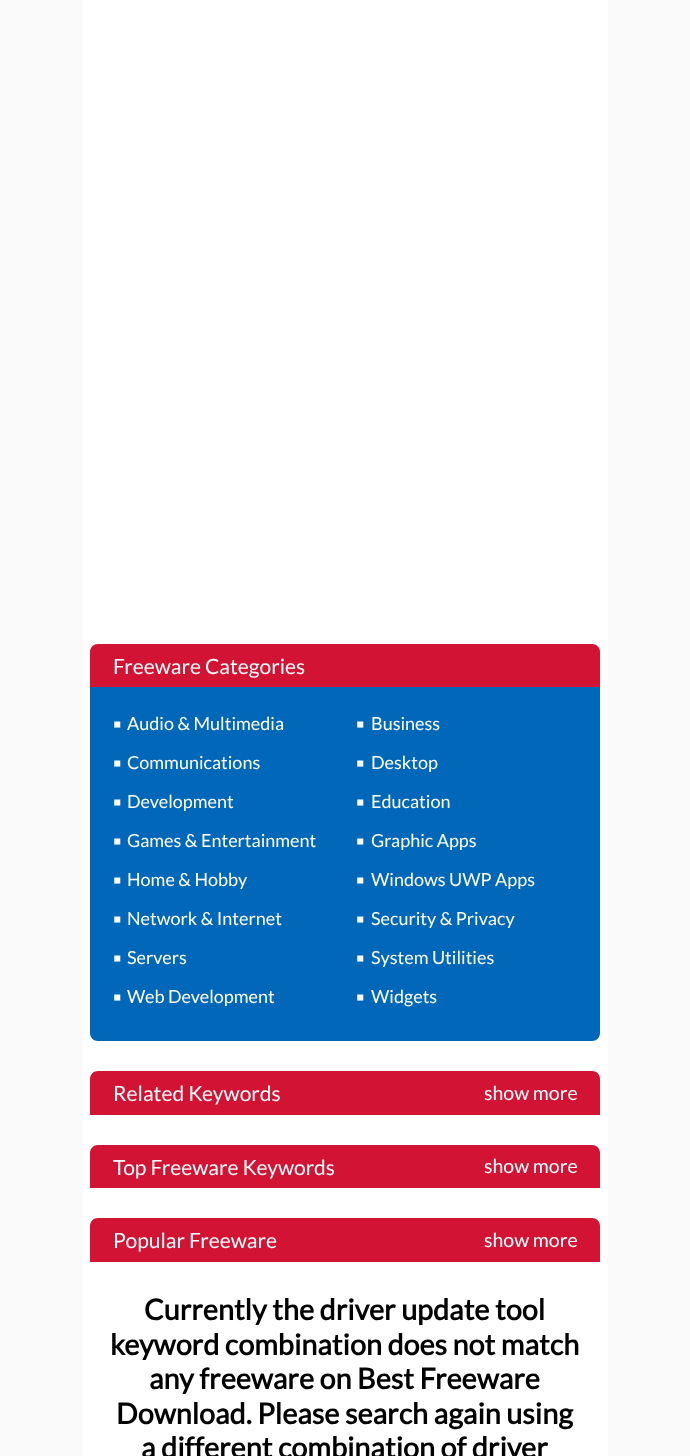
<svg xmlns="http://www.w3.org/2000/svg" width="690" height="1456" viewBox="0 0 690 1456">
  <rect width="100%" height="100%" fill="#fafafa"/>
  <path d="M83 0h525v1456H83z" fill="#fff"/>
  <path d="M98 644H592C596.5 644 600 647.5 600 652V687H90V652C90 647.5 93.5 644 98 644Z" fill="#d31333"/>
  <path d="M90 687H600V1033C600 1037.5 596.5 1041 592 1041H98C93.5 1041 90 1037.5 90 1033Z" fill="#0067b9"/>
  <path d="M98 1071H592C596.5 1071 600 1074.5 600 1079V1115H90V1079C90 1074.5 93.5 1071 98 1071Z" fill="#d31333"/>
  <path d="M98 1145H592C596.5 1145 600 1148.5 600 1153V1188H90V1153C90 1148.5 93.5 1145 98 1145Z" fill="#d31333"/>
  <path d="M98 1218H592C596.5 1218 600 1221.5 600 1226V1262H90V1226C90 1221.5 93.5 1218 98 1218Z" fill="#d31333"/>
  <text x="113" y="674" font-family="Lato" font-size="21" fill="#fff">Freeware Categories</text>
  <text x="113" y="732" font-family="Liberation Sans" font-size="24" fill="#fff">▪</text>
  <text x="127" y="730" font-family="Lato" font-size="18" fill="#fff">Audio &amp; Multimedia</text>
  <text x="356" y="732" font-family="Liberation Sans" font-size="24" fill="#fff">▪</text>
  <text x="371" y="730" font-family="Lato" font-size="18" fill="#fff">Business</text>
  <text x="113" y="771" font-family="Liberation Sans" font-size="24" fill="#fff">▪</text>
  <text x="127" y="769" font-family="Lato" font-size="18" fill="#fff">Communications</text>
  <text x="356" y="771" font-family="Liberation Sans" font-size="24" fill="#fff">▪</text>
  <text x="371" y="769" font-family="Lato" font-size="18" fill="#fff">Desktop</text>
  <text x="113" y="810" font-family="Liberation Sans" font-size="24" fill="#fff">▪</text>
  <text x="127" y="808" font-family="Lato" font-size="18" fill="#fff">Development</text>
  <text x="356" y="810" font-family="Liberation Sans" font-size="24" fill="#fff">▪</text>
  <text x="371" y="808" font-family="Lato" font-size="18" fill="#fff">Education</text>
  <text x="113" y="849" font-family="Liberation Sans" font-size="24" fill="#fff">▪</text>
  <text x="127" y="847" font-family="Lato" font-size="18" fill="#fff">Games &amp; Entertainment</text>
  <text x="356" y="849" font-family="Liberation Sans" font-size="24" fill="#fff">▪</text>
  <text x="371" y="847" font-family="Lato" font-size="18" fill="#fff">Graphic Apps</text>
  <text x="113" y="888" font-family="Liberation Sans" font-size="24" fill="#fff">▪</text>
  <text x="127" y="886" font-family="Lato" font-size="18" fill="#fff">Home &amp; Hobby</text>
  <text x="356" y="888" font-family="Liberation Sans" font-size="24" fill="#fff">▪</text>
  <text x="371" y="886" font-family="Lato" font-size="18" fill="#fff">Windows UWP Apps</text>
  <text x="113" y="927" font-family="Liberation Sans" font-size="24" fill="#fff">▪</text>
  <text x="127" y="925" font-family="Lato" font-size="18" fill="#fff">Network &amp; Internet</text>
  <text x="356" y="927" font-family="Liberation Sans" font-size="24" fill="#fff">▪</text>
  <text x="371" y="925" font-family="Lato" font-size="18" fill="#fff">Security &amp; Privacy</text>
  <text x="113" y="966" font-family="Liberation Sans" font-size="24" fill="#fff">▪</text>
  <text x="127" y="964" font-family="Lato" font-size="18" fill="#fff">Servers</text>
  <text x="356" y="966" font-family="Liberation Sans" font-size="24" fill="#fff">▪</text>
  <text x="371" y="964" font-family="Lato" font-size="18" fill="#fff">System Utilities</text>
  <text x="113" y="1005" font-family="Liberation Sans" font-size="24" fill="#fff">▪</text>
  <text x="127" y="1003" font-family="Lato" font-size="18" fill="#fff">Web Development</text>
  <text x="356" y="1005" font-family="Liberation Sans" font-size="24" fill="#fff">▪</text>
  <text x="371" y="1003" font-family="Lato" font-size="18" fill="#fff">Widgets</text>
  <text x="113" y="1101" font-family="Lato" font-size="21" fill="#fff">Related Keywords</text>
  <text x="484" y="1100" font-family="Lato" font-size="19.5" fill="#fff">show more</text>
  <text x="113" y="1175" font-family="Lato" font-size="21" fill="#fff">Top Freeware Keywords</text>
  <text x="484" y="1173" font-family="Lato" font-size="19.5" fill="#fff">show more</text>
  <text x="113" y="1248" font-family="Lato" font-size="21" fill="#fff">Popular Freeware</text>
  <text x="484" y="1247" font-family="Lato" font-size="19.5" fill="#fff">show more</text>
  <g font-family="Lato" font-size="28.75" font-weight="bold" fill="#000">
    <text x="144" y="1320">Currently the driver update tool</text>
    <text x="110" y="1355">keyword combination does not match</text>
    <text x="149" y="1389">any freeware on Best Freeware</text>
    <text x="116" y="1424">Download. Please search again using</text>
    <text x="141" y="1458">a different combination of driver</text>
  </g>
</svg>
